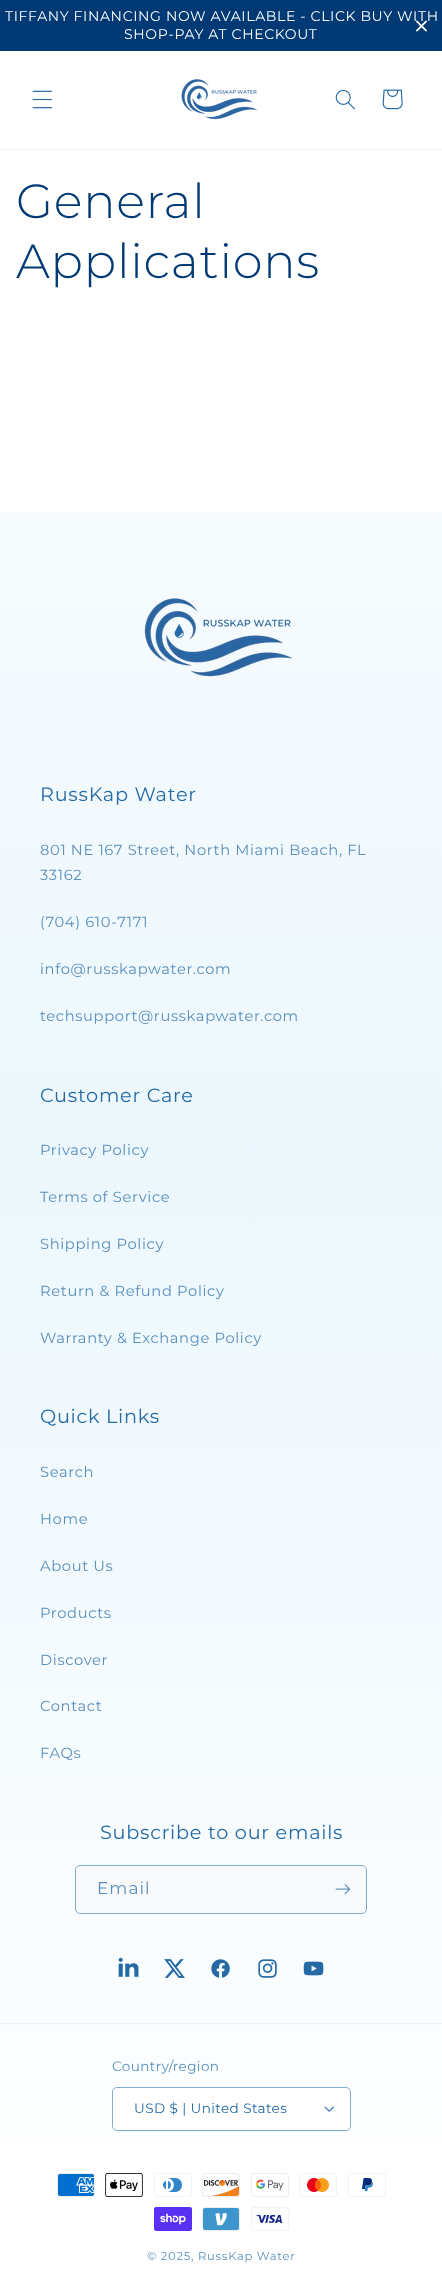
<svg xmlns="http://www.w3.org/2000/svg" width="442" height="2293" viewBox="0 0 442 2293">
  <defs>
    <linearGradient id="g1" gradientUnits="userSpaceOnUse" x1="221" y1="2293" x2="221" y2="0"><stop offset="0" stop-color="#fff"/><stop offset="0.5" stop-color="#ecf7fd"/><stop offset="1" stop-color="#fff"/></linearGradient>
  </defs>
  <rect width="100%" height="100%" fill="#fff"/>
  <path d="M0 0h442v51H0z" fill="#003974"/>
  <path d="M0 149h442v1H0z" fill="#eef3f8"/>
  <image x="32" y="90" width="20" height="19" href="img/2.png"/>
  <image x="181" y="79" width="77" height="41" href="img/3.png"/>
  <image x="335" y="89" width="20" height="21" href="img/4.png"/>
  <image x="382" y="89" width="21" height="21" href="img/5.png"/>
  <path d="M0 512h442v1630H0z" fill="url(#g1)"/>
  <image x="144" y="598" width="149" height="79" href="img/6.png"/>
  <rect x="76" y="1866" width="290" height="47" rx="4" fill="#f7f9fb"/>
  <rect x="75.5" y="1865.5" width="291" height="48" rx="4.5" fill="none" stroke="#84accd"/>
  <image x="335" y="1884" width="15" height="11" href="img/7.png"/>
  <image x="118" y="1957" width="21" height="20" href="img/8.png"/>
  <image x="164" y="1959" width="21" height="19" href="img/9.png"/>
  <image x="211" y="1959" width="19" height="19" href="img/10.png"/>
  <image x="258" y="1959" width="19" height="19" href="img/11.png"/>
  <image x="303" y="1961" width="21" height="15" href="img/12.png"/>
  <path d="M0 2023h442v1H0z" fill="#eaf1f8"/>
  <rect x="112" y="2087" width="239" height="44" rx="5" fill="#fff"/>
  <image x="324" y="2106" width="10" height="6" href="img/13.png"/>
  <rect x="112.5" y="2087.5" width="238" height="43" rx="4.5" fill="none" stroke="#87adce"/>
  <image x="57" y="2173" width="38" height="24" href="img/14.png"/>
  <image x="105" y="2173" width="38" height="24" href="img/15.png"/>
  <image x="154" y="2173" width="38" height="24" href="img/16.png"/>
  <image x="202" y="2173" width="38" height="24" href="img/17.png"/>
  <image x="251" y="2173" width="38" height="24" href="img/18.png"/>
  <image x="299" y="2173" width="38" height="24" href="img/19.png"/>
  <image x="348" y="2173" width="38" height="24" href="img/20.png"/>
  <image x="154" y="2207" width="38" height="24" href="img/21.png"/>
  <image x="202" y="2207" width="38" height="24" href="img/22.png"/>
  <image x="251" y="2207" width="38" height="24" href="img/23.png"/>
  <g font-family="Montserrat" font-size="14" letter-spacing="0.65" fill="#fff">
    <text x="5" y="21">TIFFANY FINANCING NOW AVAILABLE - CLICK BUY WITH</text>
    <text x="124" y="39">SHOP-PAY AT CHECKOUT</text>
  </g>
  <image x="416" y="20" width="11" height="12" href="img/1.png"/>
  <g font-family="Montserrat" font-size="48" font-weight="300" letter-spacing="0.75" fill="#003974">
    <text x="16" y="218">General</text>
    <text x="16" y="278">Applications</text>
  </g>
  <text x="40" y="801" font-family="Montserrat" font-size="19.25" letter-spacing="0.75" fill="#256aa5">RussKap Water</text>
  <g font-family="Montserrat" font-size="14.7" letter-spacing="0.65" fill="#5b8fbc">
    <text x="40" y="855">801 NE 167 Street, North Miami Beach, FL</text>
    <text x="40" y="880">33162</text>
    <text x="40" y="927">(704) 610-7171</text>
    <text x="40" y="974">info@russkapwater.com</text>
    <text x="40" y="1021">techsupport@russkapwater.com</text>
  </g>
  <text x="40" y="1102" font-family="Montserrat" font-size="19.25" letter-spacing="0.75" fill="#256aa5">Customer Care</text>
  <g font-family="Montserrat" font-size="14.7" letter-spacing="0.65" fill="#5b8fbc">
    <text x="40" y="1155">Privacy Policy</text>
    <text x="40" y="1202">Terms of Service</text>
    <text x="40" y="1249">Shipping Policy</text>
    <text x="40" y="1296">Return &amp; Refund Policy</text>
    <text x="40" y="1343">Warranty &amp; Exchange Policy</text>
  </g>
  <text x="40" y="1423" font-family="Montserrat" font-size="19.25" letter-spacing="0.75" fill="#256aa5">Quick Links</text>
  <g font-family="Montserrat" font-size="14.7" letter-spacing="0.65" fill="#5b8fbc">
    <text x="40" y="1477">Search</text>
    <text x="40" y="1524">Home</text>
    <text x="40" y="1571">About Us</text>
    <text x="40" y="1618">Products</text>
    <text x="40" y="1665">Discover</text>
    <text x="40" y="1711">Contact</text>
    <text x="40" y="1758">FAQs</text>
  </g>
  <text x="100" y="1839" font-family="Montserrat" font-size="19.25" letter-spacing="0.75" fill="#256aa5">Subscribe to our emails</text>
  <text x="97" y="1894" font-family="Montserrat" font-size="17" letter-spacing="1" fill="#5b8fbc">Email</text>
  <text x="112" y="2071" font-family="Montserrat" font-size="13.6" letter-spacing="0.4" fill="#5b8fbc">Country/region</text>
  <text x="134" y="2113" font-family="Montserrat" font-size="13.6" letter-spacing="0.4" fill="#256aa5">USD $ | United States</text>
  <text x="147" y="2260" font-family="Montserrat" font-size="11.5" letter-spacing="0.75" fill="#5b8fbc">© 2025, RussKap Water</text>
</svg>
